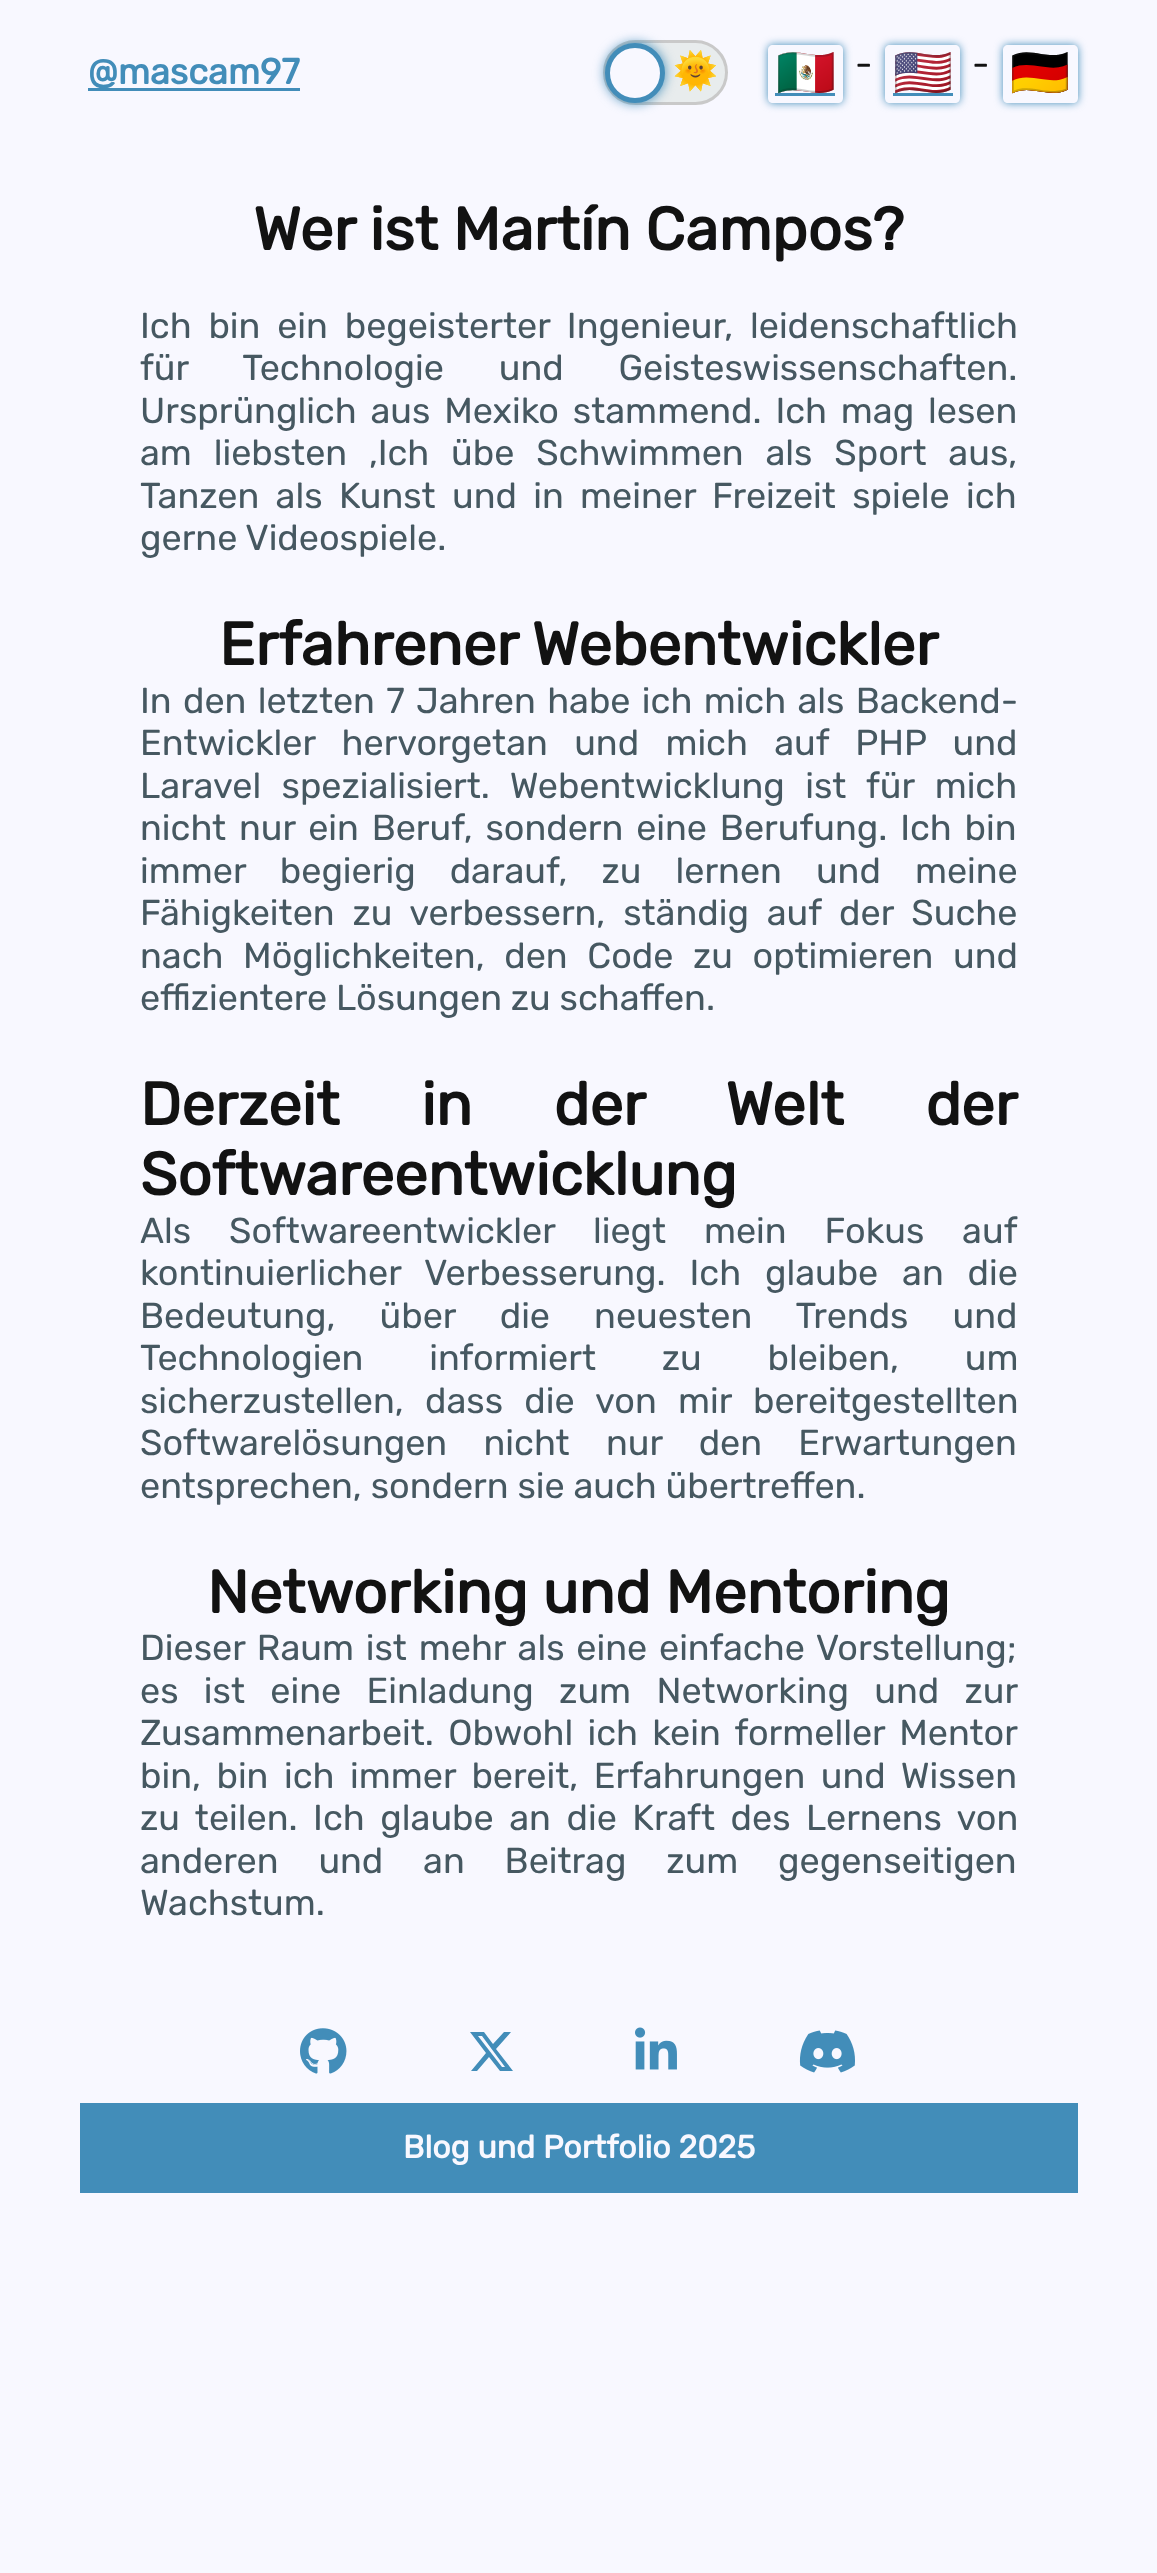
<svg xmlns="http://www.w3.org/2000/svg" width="1157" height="2573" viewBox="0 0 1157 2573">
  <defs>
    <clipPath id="clip1"><path d="M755 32H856V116H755ZM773 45H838C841 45 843 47 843 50V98C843 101 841 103 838 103H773C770 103 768 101 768 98V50C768 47 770 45 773 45Z" clip-rule="evenodd"/></clipPath>
    <clipPath id="clip2"><path d="M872 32H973V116H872ZM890 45H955C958 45 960 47 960 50V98C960 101 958 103 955 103H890C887 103 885 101 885 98V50C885 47 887 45 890 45Z" clip-rule="evenodd"/></clipPath>
    <clipPath id="clip3"><path d="M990 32H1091V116H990ZM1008 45H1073C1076 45 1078 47 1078 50V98C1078 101 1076 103 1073 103H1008C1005 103 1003 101 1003 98V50C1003 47 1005 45 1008 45Z" clip-rule="evenodd"/></clipPath>
  </defs>
  <rect width="100%" height="100%" fill="#f8f8ff"/>
  <path d="M88 88h212v3H88z" fill="#428db9"/>
  <rect x="604.5" y="41.5" width="122" height="62" rx="31" fill="#e8eced" stroke="#c9c9c9" stroke-width="3"/>
  <rect x="605" y="43" width="60" height="60" rx="30" fill="#428db9" filter="blur(6px)"/>
  <circle cx="635" cy="73" r="27.5" fill="#f8f8ff" stroke="#428db9" stroke-width="5"/>
  <g clip-path="url(#clip1)">
    <rect x="768" y="45" width="75" height="58" rx="5" fill="#428db9" filter="blur(4px)"/>
  </g>
  <path d="M775 93h60v3H775z" fill="#428db9"/>
  <g clip-path="url(#clip2)">
    <rect x="885" y="45" width="75" height="58" rx="5" fill="#428db9" filter="blur(4px)"/>
  </g>
  <path d="M893 93h60v3H893z" fill="#428db9"/>
  <g clip-path="url(#clip3)">
    <rect x="1003" y="45" width="75" height="58" rx="5" fill="#428db9" filter="blur(4px)"/>
  </g>
  <image x="300" y="2028" width="47" height="46" href="img/1.png"/>
  <path d="M504 2032H511L496 2049L513 2071H500L489 2057L477 2071H471L486 2053L470 2032H484L493 2044ZM502 2067H505L482 2036H478Z" fill="#428db9"/>
  <image x="635" y="2027" width="42" height="43" href="img/2.png"/>
  <image x="799" y="2030" width="56" height="43" href="img/3.png"/>
  <path d="M80 2103h998v90H80z" fill="#428db9"/>
  <text x="88" y="84" font-family="Rubik" font-size="36" font-weight="bold" fill="#428db9">@mascam97</text>
  <text x="673" y="83" font-family="Noto Color Emoji" font-size="36" fill="#121212">🌞</text>
  <text x="776" y="89" font-family="Noto Color Emoji" font-size="48" fill="#428db9">🇲🇽</text>
  <text x="855" y="76" font-family="Rubik" font-size="36" font-weight="300" fill="#121212">-</text>
  <text x="893" y="89" font-family="Noto Color Emoji" font-size="48" fill="#428db9">🇺🇸</text>
  <text x="972" y="76" font-family="Rubik" font-size="36" font-weight="300" fill="#121212">-</text>
  <text x="1010" y="89" font-family="Noto Color Emoji" font-size="48" fill="#428db9">🇩🇪</text>
  <text x="253" y="250" font-family="Rubik" font-size="60" font-weight="bold" fill="#121212">Wer ist Martín Campos?</text>
  <g font-family="Rubik" font-size="36" font-weight="300" fill="#465861">
    <text x="140" y="338" word-spacing="8">Ich bin ein begeisterter Ingenieur, leidenschaftlich</text>
    <text x="140" y="380" word-spacing="46">für Technologie und Geisteswissenschaften.</text>
    <text x="140" y="423" word-spacing="5">Ursprünglich aus Mexiko stammend. Ich mag lesen</text>
    <text x="140" y="465" word-spacing="13">am liebsten ,Ich übe Schwimmen als Sport aus,</text>
    <text x="140" y="508" word-spacing="7.5">Tanzen als Kunst und in meiner Freizeit spiele ich</text>
    <text x="140" y="550">gerne Videospiele.</text>
  </g>
  <text x="219" y="665" font-family="Rubik" font-size="60" font-weight="bold" fill="#121212">Erfahrener Webentwickler</text>
  <g font-family="Rubik" font-size="36" font-weight="300" fill="#465861">
    <text x="140" y="713" word-spacing="2.5">In den letzten 7 Jahren habe ich mich als Backend-</text>
    <text x="140" y="755" word-spacing="17.5">Entwickler hervorgetan und mich auf PHP und</text>
    <text x="140" y="798" word-spacing="11.5">Laravel spezialisiert. Webentwicklung ist für mich</text>
    <text x="140" y="840" word-spacing="4">nicht nur ein Beruf, sondern eine Berufung. Ich bin</text>
    <text x="140" y="883" word-spacing="25.25">immer begierig darauf, zu lernen und meine</text>
    <text x="140" y="925" word-spacing="9">Fähigkeiten zu verbessern, ständig auf der Suche</text>
    <text x="140" y="968" word-spacing="10.75">nach Möglichkeiten, den Code zu optimieren und</text>
    <text x="140" y="1010">effizientere Lösungen zu schaffen.</text>
  </g>
  <g font-family="Rubik" font-size="60" font-weight="bold" fill="#121212">
    <text x="140" y="1125" word-spacing="67">Derzeit in der Welt der</text>
    <text x="140" y="1195">Softwareentwicklung</text>
  </g>
  <g font-family="Rubik" font-size="36" font-weight="300" fill="#465861">
    <text x="140" y="1243" word-spacing="29">Als Softwareentwickler liegt mein Fokus auf</text>
    <text x="140" y="1285" word-spacing="15">kontinuierlicher Verbesserung. Ich glaube an die</text>
    <text x="140" y="1328" word-spacing="35.25">Bedeutung, über die neuesten Trends und</text>
    <text x="140" y="1370" word-spacing="57">Technologien informiert zu bleiben, um</text>
    <text x="140" y="1413" word-spacing="12.5">sicherzustellen, dass die von mir bereitgestellten</text>
    <text x="140" y="1455" word-spacing="27.5">Softwarelösungen nicht nur den Erwartungen</text>
    <text x="140" y="1498">entsprechen, sondern sie auch übertreffen.</text>
  </g>
  <text x="207" y="1613" font-family="Rubik" font-size="60" font-weight="bold" fill="#121212">Networking und Mentoring</text>
  <g font-family="Rubik" font-size="36" font-weight="300" fill="#465861">
    <text x="140" y="1660" word-spacing="3">Dieser Raum ist mehr als eine einfache Vorstellung;</text>
    <text x="140" y="1703" word-spacing="16.5">es ist eine Einladung zum Networking und zur</text>
    <text x="140" y="1745" word-spacing="5.5">Zusammenarbeit. Obwohl ich kein formeller Mentor</text>
    <text x="140" y="1788" word-spacing="6.75">bin, bin ich immer bereit, Erfahrungen und Wissen</text>
    <text x="140" y="1830" word-spacing="6.75">zu teilen. Ich glaube an die Kraft des Lernens von</text>
    <text x="140" y="1873" word-spacing="31">anderen und an Beitrag zum gegenseitigen</text>
    <text x="140" y="1915">Wachstum.</text>
  </g>
  <text x="403" y="2158" font-family="Rubik" font-size="32" font-weight="bold" fill="#f8f8ff">Blog und Portfolio 2025</text>
</svg>
